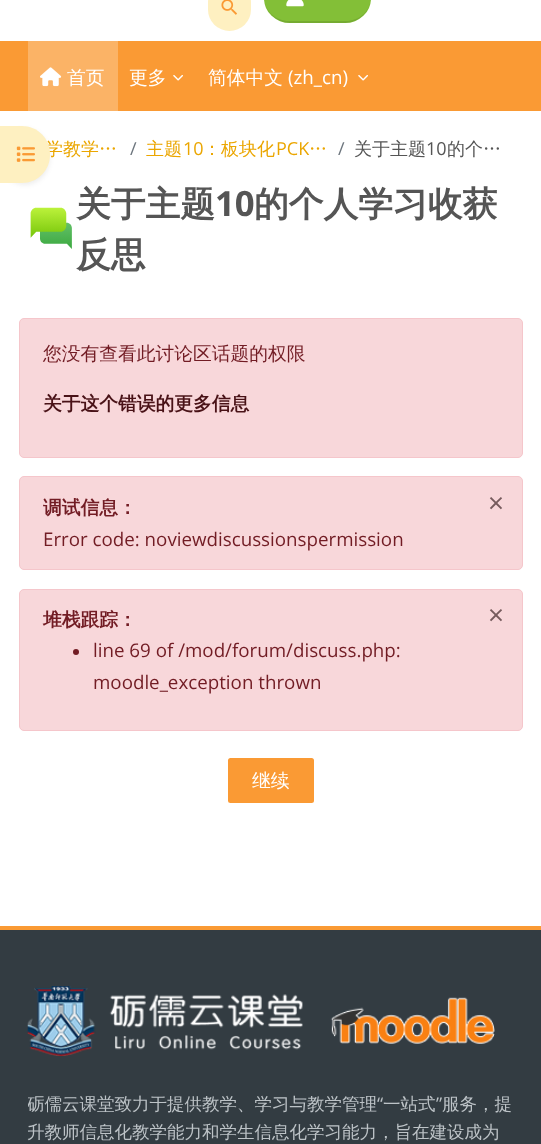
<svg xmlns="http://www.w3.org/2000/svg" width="541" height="1144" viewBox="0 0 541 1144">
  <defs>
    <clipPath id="clip1"><path d="M28 986h486v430H28z"/></clipPath>
  </defs>
  <rect width="100%" height="100%" fill="#fff"/>
  <rect x="208" y="-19" width="43" height="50" rx="21.5" fill="#fef0c1"/>
  <image x="221" y="0" width="16" height="15" href="img/1.png"/>
  <rect x="264" y="-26" width="107" height="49" rx="26" fill="#83bf37"/>
  <path d="M264-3C264 11 276 23 290 23H345C359 23 371 11 371-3C371 10 360 21 346 21H289C275 21 264 10 264-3Z" fill="#0000001a"/>
  <image x="286" y="0" width="18" height="7" href="img/2.png"/>
  <path d="M0 41h541v70H0z" fill="#fa9a34"/>
  <path d="M28 41h90v70H28z" fill="#fbb366"/>
  <image x="40" y="67" width="22" height="20" href="img/3.png"/>
  <image x="173" y="75" width="10" height="6" href="img/4.png"/>
  <image x="358" y="75" width="10" height="6" href="img/4.png"/>
  <rect y="129" width="50" height="56" rx="28" fill="#00000012" filter="blur(2.5px)"/>
  <image x="30" y="207" width="42" height="42" href="img/6.png"/>
  <rect x="19.5" y="318.5" width="503" height="139" rx="4.5" fill="#f8d7da" stroke="#f5c6cb"/>
  <rect x="19.5" y="476.5" width="503" height="93" rx="4.5" fill="#f8d7da" stroke="#f5c6cb"/>
  <rect x="19.5" y="589.5" width="503" height="141" rx="4.5" fill="#f8d7da" stroke="#f5c6cb"/>
  <circle cx="76" cy="652" r="3" fill="#721c24"/>
  <rect x="228" y="758" width="86" height="45" rx="2.5" fill="#fa9a34"/>
  <path d="M0 930h541v214H0z" fill="#333c42"/>
  <path d="M0 926h541v4H0z" fill="#fa9a34"/>
  <image x="27" y="986" width="468" height="70" href="img/7.png"/>
  <g font-family="WenQuanYi Zen Hei" font-size="18.75" font-weight="500" fill="#fff">
    <text x="67" y="84">首页</text>
    <text x="129" y="84">更多</text>
    <text x="208" y="84">简体中文</text>
  </g>
  <text x="288" y="84" font-family="Open Sans" font-size="18.75" fill="#fff">(zh_cn)</text>
  <text x="45" y="155" font-family="WenQuanYi Zen Hei" font-size="18" font-weight="500" fill="#eba600">学教学…</text>
  <path d="M0 126H22C37.5 126 50 138.5 50 154V155C50 170.5 37.5 183 22 183H0Z" fill="#fef0c1"/>
  <image x="16" y="146" width="19" height="16" href="img/5.png"/>
  <text x="130" y="155" font-family="Open Sans" font-size="18" fill="#6c757d">/</text>
  <text x="146" y="155" font-family="WenQuanYi Zen Hei" font-size="18" font-weight="500" fill="#eba600">主题</text>
  <text x="183" y="155" font-family="Open Sans" font-size="18" fill="#eba600">10</text>
  <text x="203" y="155" font-family="WenQuanYi Zen Hei" font-size="18" font-weight="500" fill="#eba600">：板块化</text>
  <text x="276" y="155" font-family="Open Sans" font-size="18" fill="#eba600">PCK</text>
  <text x="309" y="155" font-family="WenQuanYi Zen Hei" font-size="18" font-weight="500" fill="#eba600">…</text>
  <text x="338" y="155" font-family="Open Sans" font-size="18" fill="#6c757d">/</text>
  <text x="354" y="155" font-family="WenQuanYi Zen Hei" font-size="18" font-weight="500" fill="#555">关于主题</text>
  <text x="426" y="155" font-family="Open Sans" font-size="18" fill="#555">10</text>
  <text x="447" y="155" font-family="WenQuanYi Zen Hei" font-size="18" font-weight="500" fill="#555">的个…</text>
  <text x="76" y="216" font-family="WenQuanYi Zen Hei" font-size="34.75" font-weight="bold" fill="#555">关于主题</text>
  <text x="215" y="216" font-family="Open Sans" font-size="34.75" font-weight="bold" fill="#555">10</text>
  <g font-family="WenQuanYi Zen Hei" font-size="34.75" font-weight="bold" fill="#555">
    <text x="254" y="216">的个人学习收获</text>
    <text x="76" y="267">反思</text>
  </g>
  <text x="43" y="360" font-family="WenQuanYi Zen Hei" font-size="18.75" font-weight="500" fill="#721c24">您没有查看此讨论区话题的权限</text>
  <text x="43" y="410" font-family="WenQuanYi Zen Hei" font-size="18.75" font-weight="bold" fill="#491217">关于这个错误的更多信息</text>
  <text x="43" y="514" font-family="WenQuanYi Zen Hei" font-size="18.75" font-weight="bold" fill="#721c24">调试信息：</text>
  <text x="488" y="513" font-family="Open Sans" font-size="28" fill="#765b5d">×</text>
  <text x="43" y="546" font-family="Open Sans" font-size="18.75" fill="#721c24">Error code: noviewdiscussionspermission</text>
  <text x="43" y="626" font-family="WenQuanYi Zen Hei" font-size="18.75" font-weight="bold" fill="#721c24">堆栈跟踪：</text>
  <text x="488" y="625" font-family="Open Sans" font-size="28" fill="#765b5d">×</text>
  <g font-family="Open Sans" font-size="18.75" fill="#721c24">
    <text x="93" y="657">line 69 of /mod/forum/discuss.php:</text>
    <text x="93" y="689">moodle_exception thrown</text>
  </g>
  <text x="252" y="787" font-family="WenQuanYi Zen Hei" font-size="18.75" font-weight="500" fill="#fff">继续</text>
  <g clip-path="url(#clip1)">
    <text x="27" y="1110" font-family="WenQuanYi Zen Hei" font-size="17.5" font-weight="500" fill="#bdc3c7">砺儒云课堂致力于提供教学、学习与教学管理</text>
  </g>
  <text x="377" y="1110" font-family="Open Sans" font-size="17.5" fill="#bdc3c7">“</text>
  <text x="383" y="1110" font-family="WenQuanYi Zen Hei" font-size="17.5" font-weight="500" fill="#bdc3c7">一站式</text>
  <text x="436" y="1110" font-family="Open Sans" font-size="17.5" fill="#bdc3c7">”</text>
  <g font-family="WenQuanYi Zen Hei" font-size="17.5" font-weight="500" fill="#bdc3c7">
    <text x="442" y="1110">服务，提</text>
    <text x="27" y="1138">升教师信息化教学能力和学生信息化学习能力，旨在建设成为</text>
  </g>
</svg>
